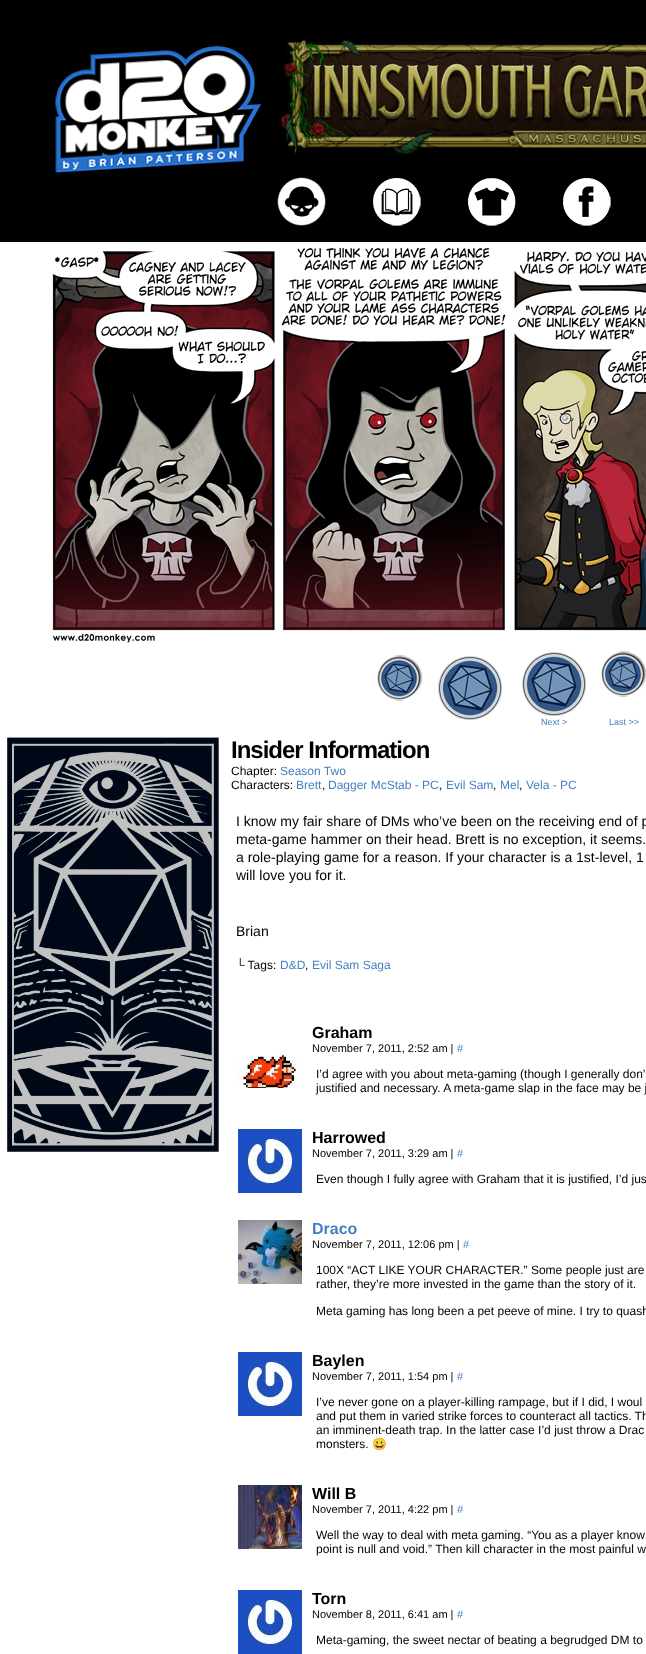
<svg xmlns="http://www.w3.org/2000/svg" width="646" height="1654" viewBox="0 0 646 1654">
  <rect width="100%" height="100%" fill="#000"/>
  <path d="M0 242h646v1412H0z" fill="#fff"/>
  <image x="55" y="46" width="206" height="127" href="img/1.png"/>
  <image x="279" y="35" width="367" height="120" href="img/2.png"/>
  <image x="277" y="177" width="49" height="49" href="img/3.png"/>
  <image x="373" y="178" width="48" height="48" href="img/4.png"/>
  <image x="468" y="178" width="48" height="48" href="img/5.png"/>
  <image x="563" y="178" width="48" height="48" href="img/6.png"/>
  <image x="52" y="247" width="594" height="396" href="img/7.png"/>
  <image x="377" y="655" width="46" height="46" href="img/8.png"/>
  <image x="438" y="656" width="64" height="64" href="img/9.png"/>
  <image x="522" y="652" width="64" height="64" href="img/9.png"/>
  <image x="601" y="651" width="45" height="46" href="img/10.png"/>
  <image x="7" y="737" width="212" height="415" href="img/11.png"/>
  <image x="238" y="1048" width="64" height="40" href="img/12.png"/>
  <image x="238" y="1129" width="64" height="64" href="img/13.png"/>
  <image x="238" y="1220" width="64" height="64" href="img/14.png"/>
  <image x="238" y="1352" width="64" height="64" href="img/13.png"/>
  <image x="238" y="1485" width="64" height="64" href="img/15.png"/>
  <image x="238" y="1590" width="64" height="64" href="img/13.png"/>
  <g font-family="Liberation Sans" font-size="9" fill="#457fc1">
    <text x="541" y="725">Next &gt;</text>
    <text x="609" y="725">Last &gt;&gt;</text>
  </g>
  <text x="231" y="758" font-family="Liberation Sans" font-size="24" font-weight="bold" letter-spacing="-1" fill="#000">Insider Information</text>
  <text x="231" y="775" font-family="Liberation Sans" font-size="12" fill="#000">Chapter:</text>
  <text x="280" y="775" font-family="Liberation Sans" font-size="12" fill="#457fc1">Season Two</text>
  <text x="231" y="789" font-family="Liberation Sans" font-size="12" fill="#000">Characters:</text>
  <text x="296" y="789" font-family="Liberation Sans" font-size="12" fill="#457fc1">Brett</text>
  <text x="322" y="789" font-family="Liberation Sans" font-size="12" fill="#000">,</text>
  <text x="328" y="789" font-family="Liberation Sans" font-size="12" fill="#457fc1">Dagger McStab - PC</text>
  <text x="439" y="789" font-family="Liberation Sans" font-size="12" fill="#000">,</text>
  <text x="446" y="789" font-family="Liberation Sans" font-size="12" fill="#457fc1">Evil Sam</text>
  <text x="493" y="789" font-family="Liberation Sans" font-size="12" fill="#000">,</text>
  <text x="500" y="789" font-family="Liberation Sans" font-size="12" fill="#457fc1">Mel</text>
  <text x="519" y="789" font-family="Liberation Sans" font-size="12" fill="#000">,</text>
  <text x="526" y="789" font-family="Liberation Sans" font-size="12" fill="#457fc1">Vela - PC</text>
  <g font-family="Liberation Sans" font-size="14" fill="#000">
    <text x="236" y="826">I know my fair share of DMs who’ve been on the receiving end of p</text>
    <text x="236" y="844">meta-game hammer on their head. Brett is no exception, it seems.</text>
    <text x="236" y="862">a role-playing game for a reason. If your character is a 1st-level, 1</text>
    <text x="236" y="880">will love you for it.</text>
    <text x="236" y="936">Brian</text>
  </g>
  <text x="236" y="969" font-family="Liberation Sans" font-size="12" fill="#000">└ Tags:</text>
  <text x="280" y="969" font-family="Liberation Sans" font-size="12" fill="#457fc1">D&amp;D</text>
  <text x="305" y="969" font-family="Liberation Sans" font-size="12" fill="#000">,</text>
  <text x="312" y="969" font-family="Liberation Sans" font-size="12" fill="#457fc1">Evil Sam Saga</text>
  <text x="312" y="1038" font-family="Liberation Sans" font-size="16" font-weight="bold" fill="#000">Graham</text>
  <text x="312" y="1052" font-family="Liberation Sans" font-size="11" fill="#000">November 7, 2011, 2:52 am |</text>
  <text x="457" y="1052" font-family="Liberation Sans" font-size="11" fill="#457fc1">#</text>
  <g font-family="Liberation Sans" font-size="12" fill="#000">
    <text x="316" y="1078">I’d agree with you about meta-gaming (though I generally don’</text>
    <text x="316" y="1092">justified and necessary. A meta-game slap in the face may be j</text>
  </g>
  <text x="312" y="1143" font-family="Liberation Sans" font-size="16" font-weight="bold" fill="#000">Harrowed</text>
  <text x="312" y="1157" font-family="Liberation Sans" font-size="11" fill="#000">November 7, 2011, 3:29 am |</text>
  <text x="457" y="1157" font-family="Liberation Sans" font-size="11" fill="#457fc1">#</text>
  <text x="316" y="1183" font-family="Liberation Sans" font-size="12" fill="#000">Even though I fully agree with Graham that it is justified, I’d jus</text>
  <text x="312" y="1234" font-family="Liberation Sans" font-size="16" font-weight="bold" fill="#457fc1">Draco</text>
  <text x="312" y="1248" font-family="Liberation Sans" font-size="11" fill="#000">November 7, 2011, 12:06 pm |</text>
  <text x="463" y="1248" font-family="Liberation Sans" font-size="11" fill="#457fc1">#</text>
  <g font-family="Liberation Sans" font-size="12" fill="#000">
    <text x="316" y="1274">100X “ACT LIKE YOUR CHARACTER.” Some people just are</text>
    <text x="316" y="1288">rather, they’re more invested in the game than the story of it.</text>
    <text x="316" y="1315">Meta gaming has long been a pet peeve of mine. I try to quash</text>
  </g>
  <text x="312" y="1366" font-family="Liberation Sans" font-size="16" font-weight="bold" fill="#000">Baylen</text>
  <text x="312" y="1380" font-family="Liberation Sans" font-size="11" fill="#000">November 7, 2011, 1:54 pm |</text>
  <text x="457" y="1380" font-family="Liberation Sans" font-size="11" fill="#457fc1">#</text>
  <g font-family="Liberation Sans" font-size="12" fill="#000">
    <text x="316" y="1406">I’ve never gone on a player-killing rampage, but if I did, I woul</text>
    <text x="316" y="1420">and put them in varied strike forces to counteract all tactics. Th</text>
    <text x="316" y="1434">an imminent-death trap. In the latter case I’d just throw a Drac</text>
    <text x="316" y="1448">monsters.</text>
  </g>
  <text x="372" y="1448" font-family="Noto Color Emoji" font-size="12" fill="#000">😀</text>
  <text x="312" y="1499" font-family="Liberation Sans" font-size="16" font-weight="bold" fill="#000">Will B</text>
  <text x="312" y="1513" font-family="Liberation Sans" font-size="11" fill="#000">November 7, 2011, 4:22 pm |</text>
  <text x="457" y="1513" font-family="Liberation Sans" font-size="11" fill="#457fc1">#</text>
  <g font-family="Liberation Sans" font-size="12" fill="#000">
    <text x="316" y="1539">Well the way to deal with meta gaming. “You as a player know</text>
    <text x="316" y="1553">point is null and void.” Then kill character in the most painful w</text>
  </g>
  <text x="312" y="1604" font-family="Liberation Sans" font-size="16" font-weight="bold" fill="#000">Torn</text>
  <text x="312" y="1618" font-family="Liberation Sans" font-size="11" fill="#000">November 8, 2011, 6:41 am |</text>
  <text x="457" y="1618" font-family="Liberation Sans" font-size="11" fill="#457fc1">#</text>
  <text x="316" y="1644" font-family="Liberation Sans" font-size="12" fill="#000">Meta-gaming, the sweet nectar of beating a begrudged DM to</text>
</svg>
